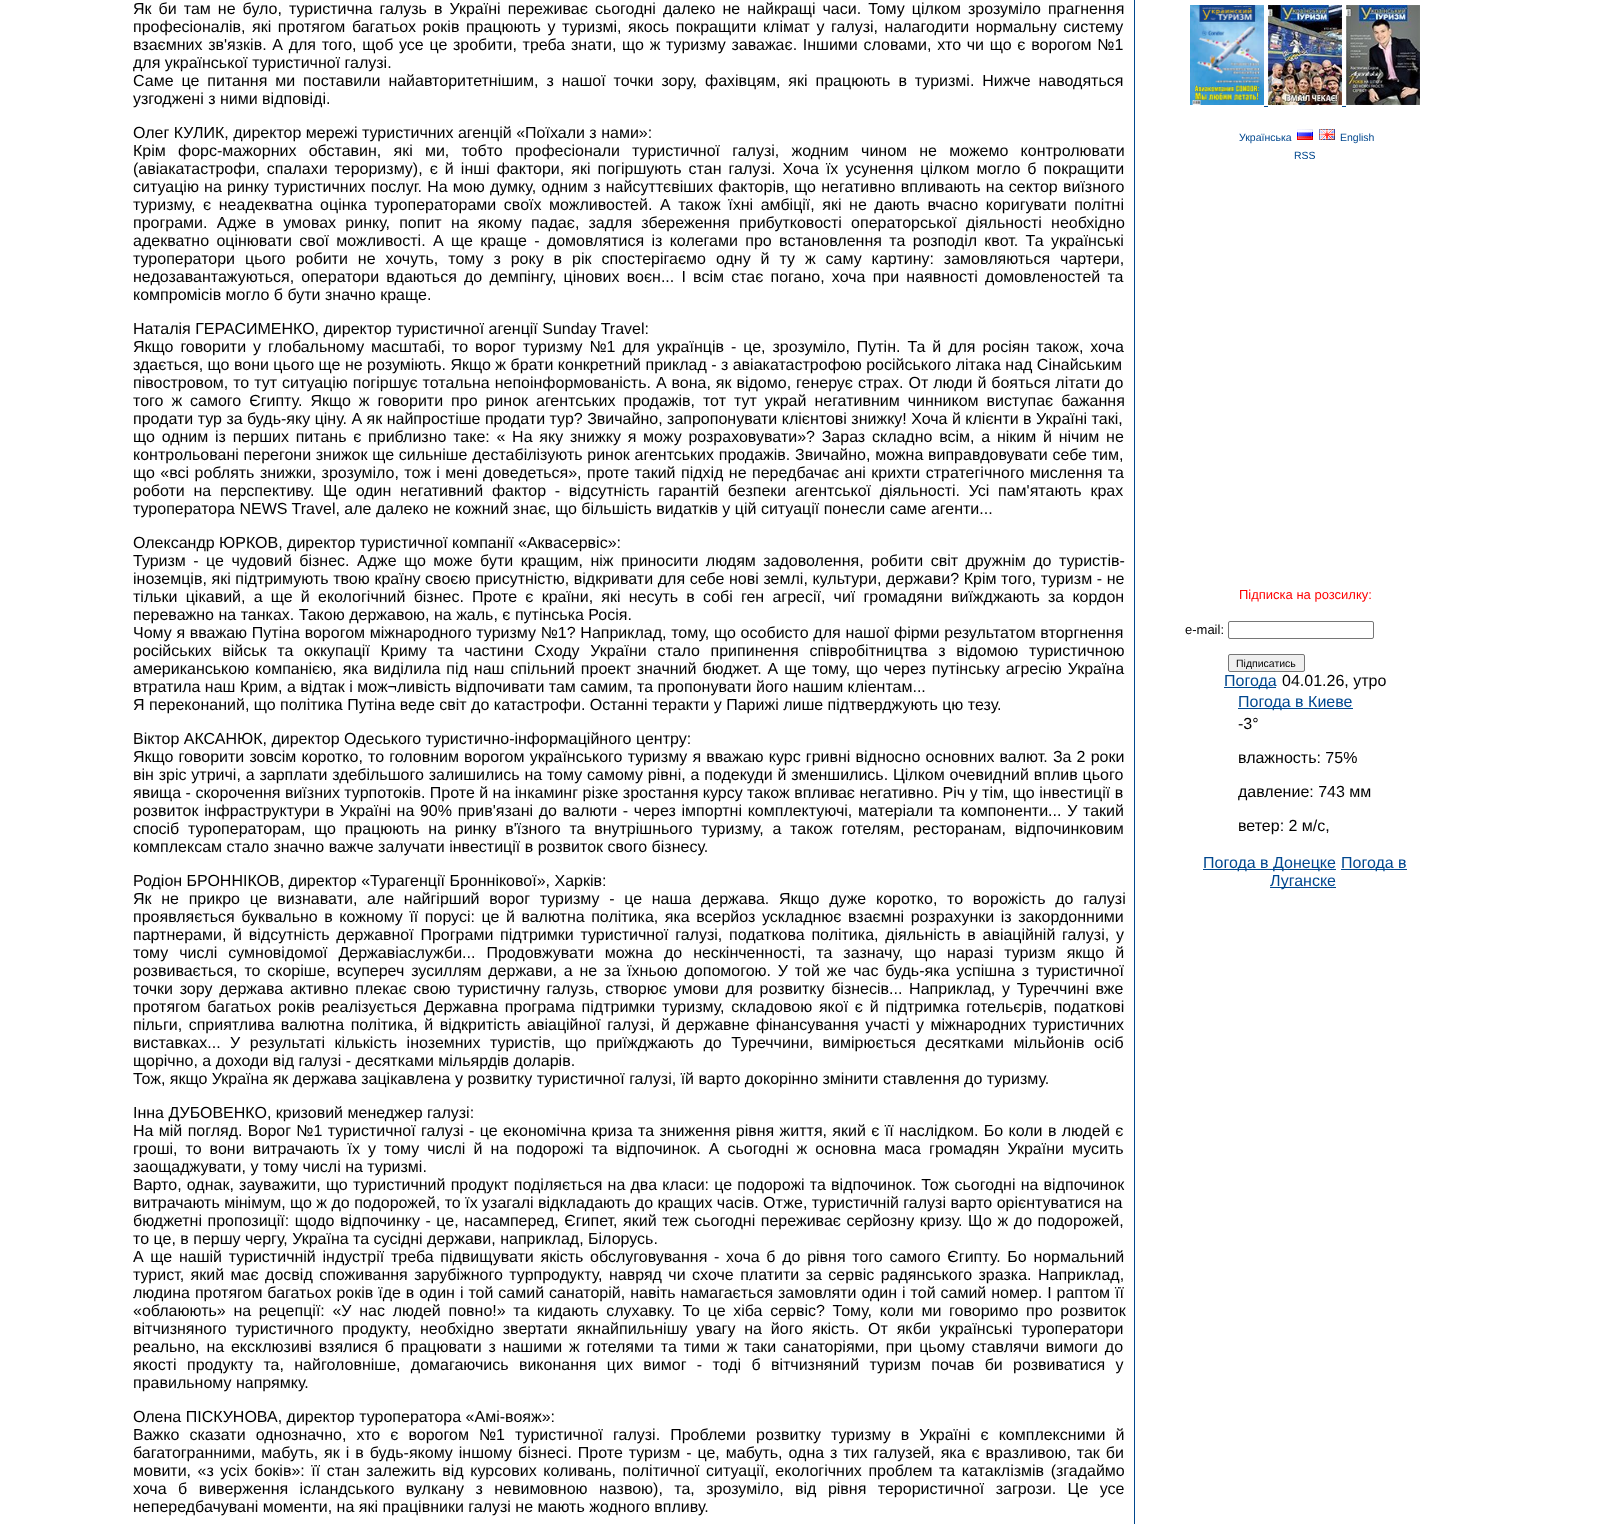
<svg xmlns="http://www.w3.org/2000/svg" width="1598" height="1524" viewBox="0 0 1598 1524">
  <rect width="100%" height="100%" fill="#fff"/>
  <path d="M1134 0h1v1524H1134z" fill="#00478e"/>
  <image x="1190" y="5" width="74" height="100" href="img/1.png"/>
  <image x="1268" y="5" width="74" height="100" href="img/2.png"/>
  <image x="1346" y="5" width="74" height="100" href="img/3.png"/>
  <path d="M1264 106h4v1H1264z" fill="#00478e"/>
  <path d="M1342 106h4v1H1342z" fill="#00478e"/>
  <image x="1297" y="129" width="16" height="11" href="img/4.png"/>
  <image x="1319" y="129" width="16" height="11" href="img/5.png"/>
  <rect x="1228.5" y="621.5" width="145" height="17" rx="1.5" fill="none" stroke="#767676"/>
  <rect x="1228.5" y="654.5" width="76" height="17" rx="1.5" fill="#efefef" stroke="#767676"/>
  <path d="M1224 687h52v1H1224z" fill="#00478e"/>
  <path d="M1238 708h115v1H1238z" fill="#00478e"/>
  <path d="M1203 869h133v1H1203z" fill="#00478e"/>
  <path d="M1341 869h66v1H1341z" fill="#00478e"/>
  <path d="M1270 887h66v1H1270z" fill="#00478e"/>
  <g font-family="Liberation Sans" font-size="16" fill="#000">
    <text x="133" y="14" word-spacing="2.6">Як би там не було, туристична галузь в Україні переживає сьогодні далеко не найкращі часи. Тому цілком зрозуміло прагнення</text>
    <text x="133" y="32" word-spacing="2.1">професіоналів, які протягом багатьох років працюють у туризмі, якось покращити клімат у галузі, налагодити нормальну систему</text>
    <text x="133" y="50" word-spacing="1.25">взаємних зв'язків. А для того, щоб усе це зробити, треба знати, що ж туризму заважає. Іншими словами, хто чи що є ворогом №1</text>
    <text x="133" y="68">для української туристичної галузі.</text>
    <text x="133" y="86" word-spacing="3.5">Саме це питання ми поставили найавторитетнішим, з нашої точки зору, фахівцям, які працюють в туризмі. Нижче наводяться</text>
    <text x="133" y="104">узгоджені з ними відповіді.</text>
    <text x="133" y="138">Олег КУЛИК, директор мережі туристичних агенцій «Поїхали з нами»:</text>
    <text x="133" y="156" word-spacing="7.75">Крім форс-мажорних обставин, які ми, тобто професіонали туристичної галузі, жодним чином не можемо контролювати</text>
    <text x="133" y="174" word-spacing="2.6">(авіакатастрофи, спалахи тероризму), є й інші фактори, які погіршують стан галузі. Хоча їх усунення цілком могло б покращити</text>
    <text x="133" y="192" word-spacing="0.75">ситуацію на ринку туристичних послуг. На мою думку, одним з найсуттєвіших факторів, що негативно впливають на сектор виїзного</text>
    <text x="133" y="210" word-spacing="3.1">туризму, є неадекватна оцінка туроператорами своїх можливостей. А також їхні амбіції, які не дають вчасно коригувати політні</text>
    <text x="133" y="228" word-spacing="4.75">програми. Адже в умовах ринку, попит на якому падає, задля збереження прибутковості операторської діяльності необхідно</text>
    <text x="133" y="246" word-spacing="2.9">адекватно оцінювати свої можливості. А ще краще - домовлятися із колегами про встановлення та розподіл квот. Та українські</text>
    <text x="133" y="264" word-spacing="5.5">туроператори цього робити не хочуть, тому з року в рік спостерігаємо одну й ту ж саму картину: замовляються чартери,</text>
    <text x="133" y="282" word-spacing="2.75">недозавантажуються, оператори вдаються до демпінгу, цінових воєн... І всім стає погано, хоча при наявності домовленостей та</text>
    <text x="133" y="300">компромісів могло б бути значно краще.</text>
    <text x="133" y="334">Наталія ГЕРАСИМЕНКО, директор туристичної агенції Sunday Travel:</text>
    <text x="133" y="352" word-spacing="2.5">Якщо говорити у глобальному масштабі, то ворог туризму №1 для українців - це, зрозуміло, Путін. Та й для росіян також, хоча</text>
    <text x="133" y="370">здається, що вони цього ще не розуміють. Якщо ж брати конкретний приклад - з авіакатастрофою російського літака над Сінайським</text>
    <text x="133" y="388" word-spacing="0.5">півостровом, то тут ситуацію погіршує тотальна непоінформованість. А вона, як відомо, генерує страх. От люди й бояться літати до</text>
    <text x="133" y="406" word-spacing="3.5">того ж самого Єгипту. Якщо ж говорити про ринок агентських продажів, тот тут украй негативним чинником виступає бажання</text>
    <text x="133" y="424">продати тур за будь-яку ціну. А як найпростіше продати тур? Звичайно, запропонувати клієнтові знижку! Хоча й клієнти в Україні такі,</text>
    <text x="133" y="442" word-spacing="2.3">що одним із перших питань є приблизно таке: « На яку знижку я можу розраховувати»? Зараз складно всім, а ніким й нічим не</text>
    <text x="133" y="460" word-spacing="0.25">контрольовані перегони знижок ще сильніше дестабілізують ринок агентських продажів. Звичайно, можна виправдовувати себе тим,</text>
    <text x="133" y="478" word-spacing="1">що «всі роблять знижки, зрозуміло, тож і мені доведеться», проте такий підхід не передбачає ані крихти стратегічного мислення та</text>
    <text x="133" y="496" word-spacing="4.25">роботи на перспективу. Ще один негативний фактор - відсутність гарантій безпеки агентської діяльності. Усі пам'ятають крах</text>
    <text x="133" y="514">туроператора NEWS Travel, але далеко не кожний знає, що більшість видатків у цій ситуації понесли саме агенти...</text>
    <text x="133" y="548">Олександр ЮРКОВ, директор туристичної компанії «Аквасервіс»:</text>
    <text x="133" y="566" word-spacing="3">Туризм - це чудовий бізнес. Адже що може бути кращим, ніж приносити людям задоволення, робити світ дружнім до туристів-</text>
    <text x="133" y="584" word-spacing="0.2">іноземців, які підтримують твою країну своєю присутністю, відкривати для себе нові землі, культури, держави? Крім того, туризм - не</text>
    <text x="133" y="602" word-spacing="3.75">тільки цікавий, а ще й екологічний бізнес. Проте є країни, які несуть в собі ген агресії, чиї громадяни виїжджають за кордон</text>
    <text x="133" y="620">переважно на танках. Такою державою, на жаль, є путінська Росія.</text>
    <text x="133" y="638" word-spacing="0.25">Чому я вважаю Путіна ворогом міжнародного туризму №1? Наприклад, тому, що особисто для нашої фірми результатом вторгнення</text>
    <text x="133" y="656" word-spacing="6.25">російських військ та оккупації Криму та частини Сходу України стало припинення співробітництва з відомою туристичною</text>
    <text x="133" y="674" word-spacing="1.5">американською компанією, яка виділила під наш спільний проект значний бюджет. А ще тому, що через путінську агресію Україна</text>
    <text x="133" y="692">втратила наш Крим, а відтак і мож¬ливість відпочивати там самим, та пропонувати його нашим кліентам...</text>
    <text x="133" y="710">Я переконаний, що політика Путіна веде світ до катастрофи. Останні теракти у Парижі лише підтверджують цю тезу.</text>
    <text x="133" y="744">Віктор АКСАНЮК, директор Одеського туристично-інформаційного центру:</text>
    <text x="133" y="762" word-spacing="0.7">Якщо говорити зовсім коротко, то головним ворогом українського туризму я вважаю курс гривні відносно основних валют. За 2 роки</text>
    <text x="133" y="780" word-spacing="0.4">він зріс утричі, а зарплати здебільшого залишились на тому самому рівні, а подекуди й зменшились. Цілком очевидний вплив цього</text>
    <text x="133" y="798">явища - скорочення виїзних турпотоків. Проте й на інкаминг різке зростання курсу також впливає негативно. Річ у тім, що інвестиції в</text>
    <text x="133" y="816" word-spacing="1.25">розвиток інфраструктури в Україні на 90% прив'язані до валюти - через імпортні комплектуючі, матеріали та компоненти... У такий</text>
    <text x="133" y="834" word-spacing="4.25">спосіб туроператорам, що працюють на ринку в'їзного та внутрішнього туризму, а також готелям, ресторанам, відпочинковим</text>
    <text x="133" y="852">комплексам стало значно важче залучати інвестиції в розвиток свого бізнесу.</text>
    <text x="133" y="886">Родіон БРОННІКОВ, директор «Турагенції Броннікової», Харків:</text>
    <text x="133" y="904" word-spacing="5.25">Як не прикро це визнавати, але найгірший ворог туризму - це наша держава. Якщо дуже коротко, то ворожість до галузі</text>
    <text x="133" y="922" word-spacing="2.1">проявляється буквально в кожному її порусі: це й валютна політика, яка всерйоз ускладнює взаємні розрахунки із закордонними</text>
    <text x="133" y="940" word-spacing="2.3">партнерами, й відсутність державної Програми підтримки туристичної галузі, податкова політика, діяльність в авіаційній галузі, у</text>
    <text x="133" y="958" word-spacing="6.5">тому числі сумновідомої Державіаслужби... Продовжувати можна до нескінченності, та зазначу, що наразі туризм якщо й</text>
    <text x="133" y="976" word-spacing="2.4">розвивається, то скоріше, всупереч зусиллям держави, а не за їхньою допомогою. У той же час будь-яка успішна з туристичної</text>
    <text x="133" y="994" word-spacing="2.3">точки зору держава активно плекає свою туристичну галузь, створює умови для розвитку бізнесів... Наприклад, у Туреччині вже</text>
    <text x="133" y="1012" word-spacing="2.3">протягом багатьох років реалізується Державна програма підтримки туризму, складовою якої є й підтримка готельєрів, податкові</text>
    <text x="133" y="1030" word-spacing="2.1">пільги, сприятлива валютна політика, й відкритість авіаційної галузі, й державне фінансування участі у міжнародних туристичних</text>
    <text x="133" y="1048" word-spacing="5.1">виставках... У результаті кількість іноземних туристів, що приїжджають до Туреччини, вимірюється десятками мільйонів осіб</text>
    <text x="133" y="1066">щорічно, а доходи від галузі - десятками мільярдів доларів.</text>
    <text x="133" y="1084">Тож, якщо Україна як держава зацікавлена у розвитку туристичної галузі, їй варто докорінно змінити ставлення до туризму.</text>
    <text x="133" y="1118">Інна ДУБОВЕНКО, кризовий менеджер галузі:</text>
    <text x="133" y="1136" word-spacing="0.9">На мій погляд. Ворог №1 туристичної галузі - це економічна криза та зниження рівня життя, який є її наслідком. Бо коли в людей є</text>
    <text x="133" y="1154" word-spacing="3.6">гроші, то вони витрачають їх у тому числі й на подорожі та відпочинок. А сьогодні ж основна маса громадян України мусить</text>
    <text x="133" y="1172">заощаджувати, у тому числі на туризмі.</text>
    <text x="133" y="1190" word-spacing="0.75">Варто, однак, зауважити, що туристичний продукт поділяється на два класи: це подорожі та відпочинок. Тож сьогодні на відпочинок</text>
    <text x="133" y="1208">витрачають мінімум, що ж до подорожей, то їх узагалі відкладають до кращих часів. Отже, туристичній галузі варто орієнтуватися на</text>
    <text x="133" y="1226" word-spacing="1.1">бюджетні пропозиції: щодо відпочинку - це, насамперед, Єгипет, який теж сьогодні переживає серйозну кризу. Що ж до подорожей,</text>
    <text x="133" y="1244">то це, в першу чергу, Україна та сусідні держави, наприклад, Білорусь.</text>
    <text x="133" y="1262" word-spacing="2.25">А ще нашій туристичній індустрії треба підвищувати якість обслуговування - хоча б до рівня того самого Єгипту. Бо нормальний</text>
    <text x="133" y="1280" word-spacing="2">турист, який має досвід споживання зарубіжного турпродукту, навряд чи схоче платити за сервіс радянського зразка. Наприклад,</text>
    <text x="133" y="1298" word-spacing="0.5">людина протягом багатьох років їде в один і той самий санаторій, навіть намагається замовляти один і той самий номер. І раптом її</text>
    <text x="133" y="1316" word-spacing="3.25">«облаюють» на рецепції: «У нас людей повно!» та кидають слухавку. То це хіба сервіс? Тому, коли ми говоримо про розвиток</text>
    <text x="133" y="1334" word-spacing="4.4">вітчизняного туристичного продукту, необхідно звертати якнайпильнішу увагу на його якість. От якби українські туроператори</text>
    <text x="133" y="1352" word-spacing="2.4">реально, на ексклюзиві взялися б працювати з нашими ж готелями та тими ж таки санаторіями, при цьому ставлячи вимоги до</text>
    <text x="133" y="1370" word-spacing="5.9">якості продукту та, найголовніше, домагаючись виконання цих вимог - тоді б вітчизняний туризм почав би розвиватися у</text>
    <text x="133" y="1388">правильному напрямку.</text>
    <text x="133" y="1422">Олена ПІСКУНОВА, директор туроператора «Амі-вояж»:</text>
    <text x="133" y="1440" word-spacing="5.6">Важко сказати однозначно, хто є ворогом №1 туристичної галузі. Проблеми розвитку туризму в Україні є комплексними й</text>
    <text x="133" y="1458" word-spacing="1.5">багатогранними, мабуть, як і в будь-якому іншому бізнесі. Проте туризм - це, мабуть, одна з тих галузей, яка є вразливою, так би</text>
    <text x="133" y="1476" word-spacing="2.1">мовити, «з усіх боків»: її стан залежить від курсових коливань, політичної ситуації, екологічних проблем та катаклізмів (згадаймо</text>
    <text x="133" y="1494" word-spacing="7">хоча б виверження ісландського вулкану з невимовною назвою), та, зрозуміло, від рівня терористичної загрози. Це усе</text>
    <text x="133" y="1512">непередбачувані моменти, на які працівники галузі не мають жодного впливу.</text>
  </g>
  <g font-family="Liberation Sans" font-size="10.5" fill="#00478e">
    <text x="1239" y="141">Українська</text>
    <text x="1340" y="141">English</text>
    <text x="1294" y="159">RSS</text>
  </g>
  <text x="1239" y="599" font-family="Liberation Sans" font-size="13" fill="#f00">Підписка на розсилку:</text>
  <text x="1185" y="634" font-family="Liberation Sans" font-size="13" fill="#000">e-mail:</text>
  <text x="1236" y="667" font-family="Liberation Sans" font-size="10.5" fill="#000">Підписатись</text>
  <text x="1224" y="686" font-family="Liberation Sans" font-size="16" fill="#00478e">Погода</text>
  <text x="1282" y="686" font-family="Liberation Sans" font-size="16" fill="#000">04.01.26, утро</text>
  <text x="1238" y="707" font-family="Liberation Sans" font-size="16" fill="#00478e">Погода в Киеве</text>
  <g font-family="Liberation Sans" font-size="16" fill="#000">
    <text x="1238" y="729">-3°</text>
    <text x="1238" y="763">влажность: 75%</text>
    <text x="1238" y="797">давление: 743 мм</text>
    <text x="1238" y="831">ветер: 2 м/с,</text>
  </g>
  <g font-family="Liberation Sans" font-size="16" fill="#00478e">
    <text x="1203" y="868">Погода в Донецке</text>
    <text x="1341" y="868">Погода в</text>
    <text x="1270" y="886">Луганске</text>
  </g>
</svg>
